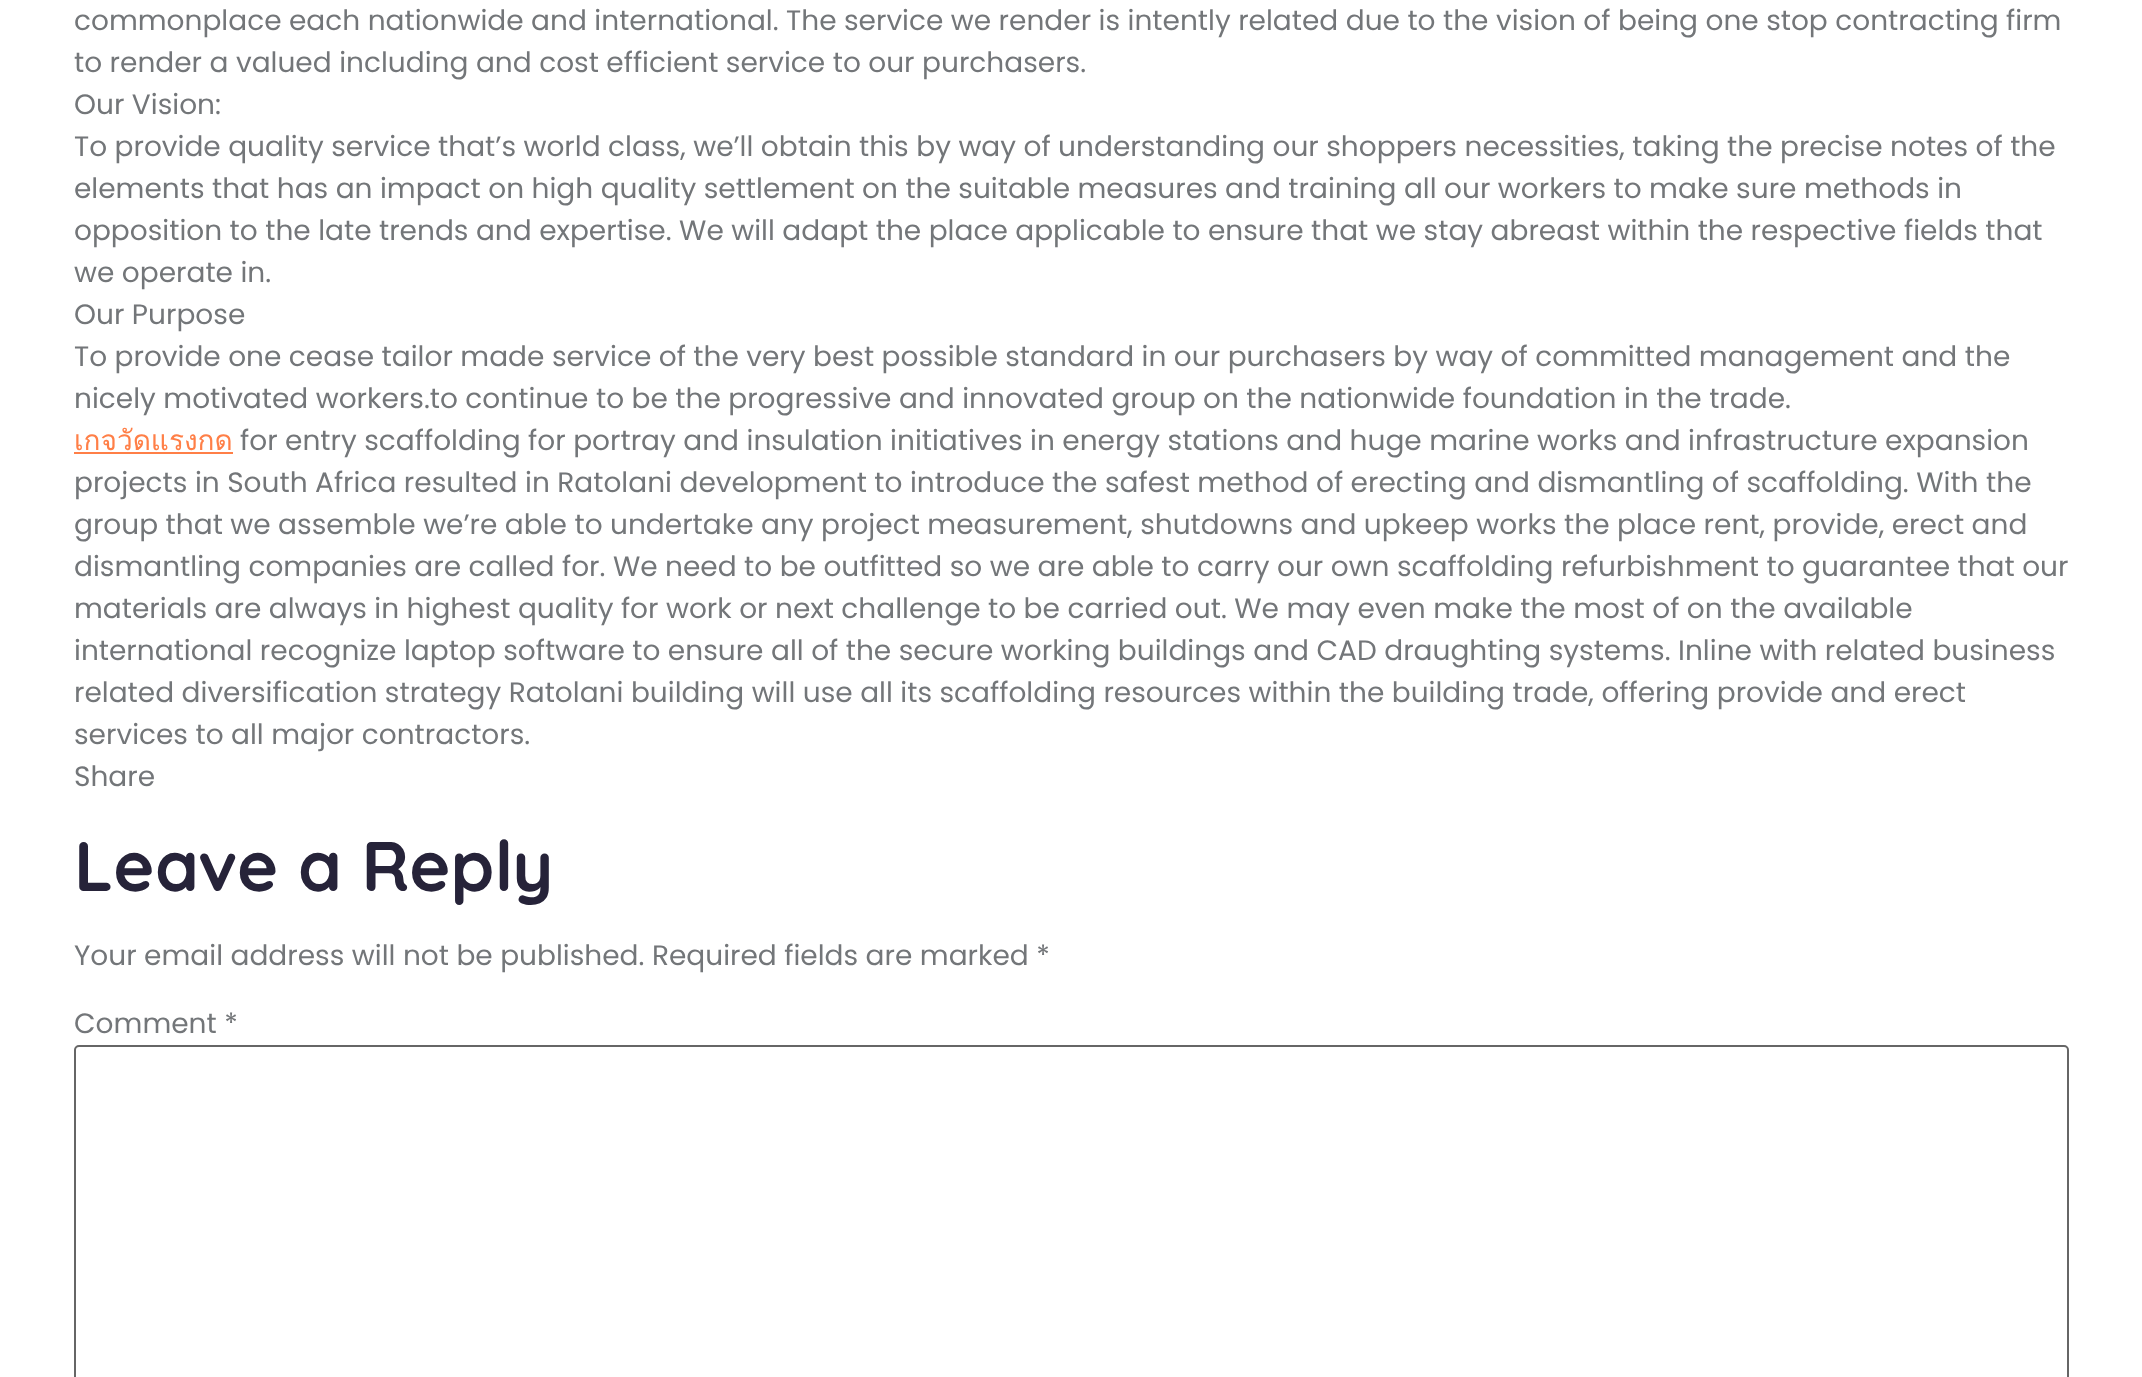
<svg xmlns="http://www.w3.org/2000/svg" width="2142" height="1377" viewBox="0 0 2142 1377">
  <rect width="100%" height="100%" fill="#fff"/>
  <path d="M74 452h159v2H74z" fill="#ff7f47"/>
  <rect x="75" y="1046" width="1993" height="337" rx="4" fill="none" stroke="#666" stroke-width="2"/>
  <g font-family="Poppins" font-size="28" fill="#737679">
    <text x="74" y="30">commonplace each nationwide and international. The service we render is intently related due to the vision of being one stop contracting firm</text>
    <text x="74" y="72">to render a valued including and cost efficient service to our purchasers.</text>
    <text x="74" y="114">Our Vision:</text>
    <text x="74" y="156">To provide quality service that’s world class, we’ll obtain this by way of understanding our shoppers necessities, taking the precise notes of the</text>
    <text x="74" y="198">elements that has an impact on high quality settlement on the suitable measures and training all our workers to make sure methods in</text>
    <text x="74" y="240">opposition to the late trends and expertise. We will adapt the place applicable to ensure that we stay abreast within the respective fields that</text>
    <text x="74" y="282">we operate in.</text>
    <text x="74" y="324">Our Purpose</text>
    <text x="74" y="366">To provide one cease tailor made service of the very best possible standard in our purchasers by way of committed management and the</text>
    <text x="74" y="408">nicely motivated workers.to continue to be the progressive and innovated group on the nationwide foundation in the trade.</text>
  </g>
  <text x="74" y="450" font-family="Loma" font-size="28" fill="#ff7f47">เกจวัดแรงกด</text>
  <g font-family="Poppins" font-size="28" fill="#737679">
    <text x="240" y="450">for entry scaffolding for portray and insulation initiatives in energy stations and huge marine works and infrastructure expansion</text>
    <text x="74" y="492">projects in South Africa resulted in Ratolani development to introduce the safest method of erecting and dismantling of scaffolding. With the</text>
    <text x="74" y="534">group that we assemble we’re able to undertake any project measurement, shutdowns and upkeep works the place rent, provide, erect and</text>
    <text x="74" y="576">dismantling companies are called for. We need to be outfitted so we are able to carry our own scaffolding refurbishment to guarantee that our</text>
    <text x="74" y="618">materials are always in highest quality for work or next challenge to be carried out. We may even make the most of on the available</text>
    <text x="74" y="660">international recognize laptop software to ensure all of the secure working buildings and CAD draughting systems. Inline with related business</text>
    <text x="74" y="702">related diversification strategy Ratolani building will use all its scaffolding resources within the building trade, offering provide and erect</text>
    <text x="74" y="744">services to all major contractors.</text>
    <text x="74" y="786">Share</text>
  </g>
  <text x="74" y="891" font-family="Quicksand" font-size="70" font-weight="bold" fill="#262339">Leave a Reply</text>
  <g font-family="Poppins" font-size="28" fill="#737679">
    <text x="74" y="965">Your email address will not be published. Required fields are marked *</text>
    <text x="74" y="1033">Comment *</text>
  </g>
</svg>
